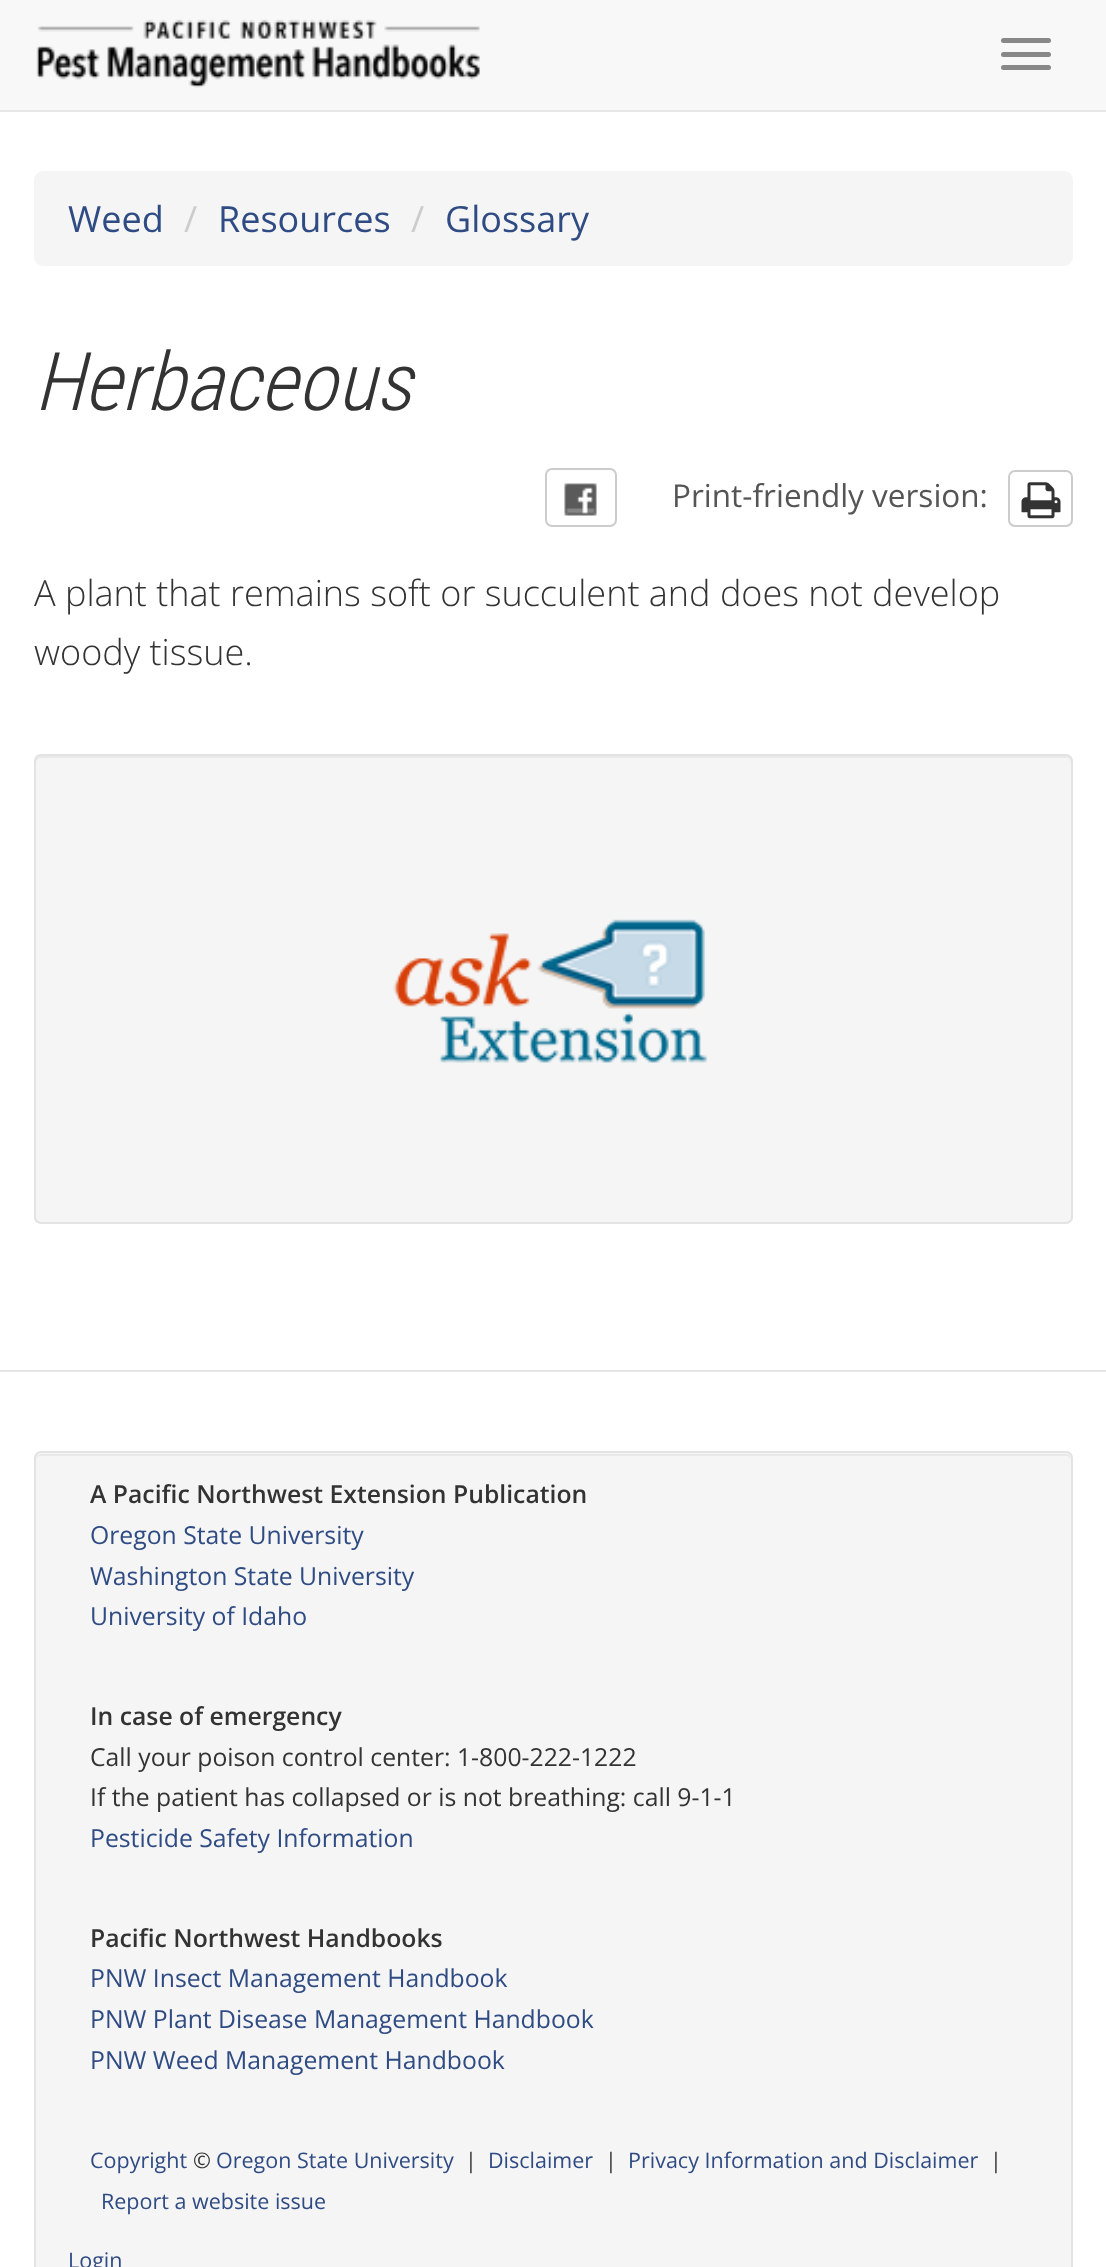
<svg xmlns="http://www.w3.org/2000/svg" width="1106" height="2267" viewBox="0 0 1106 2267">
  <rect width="100%" height="100%" fill="#fff"/>
  <path d="M0 0h1106v110H0z" fill="#f8f8f8"/>
  <path d="M0 110h1106v2H0z" fill="#e7e7e7"/>
  <image x="36" y="19" width="444" height="69" href="img/1.png"/>
  <rect x="1001" y="38" width="50" height="5" rx="2.5" fill="#888"/>
  <rect x="1001" y="52" width="50" height="5" rx="2.5" fill="#888"/>
  <rect x="1001" y="65" width="50" height="5" rx="2.5" fill="#888"/>
  <rect x="34" y="171" width="1039" height="95" rx="9" fill="#f5f5f5"/>
  <rect x="546" y="469" width="70" height="57" rx="6" fill="none" stroke="#ccc" stroke-width="2"/>
  <image x="564" y="483" width="33" height="33" href="img/2.png"/>
  <rect x="1009" y="471" width="63" height="55" rx="6" fill="none" stroke="#ccc" stroke-width="2"/>
  <image x="1021" y="482" width="40" height="37" href="img/3.png"/>
  <rect x="34" y="754" width="1039" height="470" rx="7" fill="#f5f5f5"/>
  <path d="M40 758H1066C1069 758 1071 760 1071 763V761C1071 758 1069 756 1066 756H41C38 756 36 758 36 761V763C36 760 38 758 40 758Z" fill="#e9e9e9"/>
  <rect x="35" y="755" width="1037" height="468" rx="6" fill="none" stroke="#e3e3e3" stroke-width="2"/>
  <image x="393" y="919" width="315" height="144" href="img/4.png"/>
  <path d="M0 1370h1106v2H0z" fill="#e5e5e5"/>
  <rect x="34" y="1451" width="1039" height="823" rx="7" fill="#f5f5f5"/>
  <path d="M40 1456H1066C1069 1456 1071 1458 1071 1460C1071 1457 1069 1454 1066 1454H41C38 1454 36 1457 36 1460C36 1458 38 1456 40 1456Z" fill="#e9e9e9"/>
  <rect x="35" y="1452" width="1037" height="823" rx="6" fill="none" stroke="#e3e3e3" stroke-width="2"/>
  <text x="68" y="232" font-family="Open Sans" font-size="36" fill="#2f4b83">Weed</text>
  <text x="184" y="232" font-family="Open Sans" font-size="36" fill="#ccc">/</text>
  <text x="218" y="232" font-family="Open Sans" font-size="36" fill="#2f4b83">Resources</text>
  <text x="411" y="232" font-family="Open Sans" font-size="36" fill="#ccc">/</text>
  <text x="445" y="232" font-family="Open Sans" font-size="36" fill="#2f4b83">Glossary</text>
  <text x="34" y="410" font-family="Roboto Condensed" font-size="81" font-weight="300" font-style="italic" fill="#333">Herbaceous</text>
  <text x="672" y="507" font-family="Open Sans" font-size="31.5" fill="#555">Print-friendly version:</text>
  <g font-family="Open Sans" font-size="36" font-weight="300" fill="#333">
    <text x="34" y="606">A plant that remains soft or succulent and does not develop</text>
    <text x="34" y="665">woody tissue.</text>
  </g>
  <text x="90" y="1503" font-family="Open Sans" font-size="24.75" font-weight="600" fill="#333">A Pacific Northwest Extension Publication</text>
  <g font-family="Open Sans" font-size="24.75" fill="#2f4b83">
    <text x="90" y="1544">Oregon State University</text>
    <text x="90" y="1585">Washington State University</text>
    <text x="90" y="1625">University of Idaho</text>
  </g>
  <text x="90" y="1725" font-family="Open Sans" font-size="24.75" font-weight="600" fill="#333">In case of emergency</text>
  <g font-family="Open Sans" font-size="24.75" fill="#333">
    <text x="90" y="1766">Call your poison control center: 1-800-222-1222</text>
    <text x="90" y="1806">If the patient has collapsed or is not breathing: call 9-1-1</text>
  </g>
  <text x="90" y="1847" font-family="Open Sans" font-size="24.75" fill="#2f4b83">Pesticide Safety Information</text>
  <text x="90" y="1947" font-family="Open Sans" font-size="24.75" font-weight="600" fill="#333">Pacific Northwest Handbooks</text>
  <g font-family="Open Sans" font-size="24.75" fill="#2f4b83">
    <text x="90" y="1987">PNW Insect Management Handbook</text>
    <text x="90" y="2028">PNW Plant Disease Management Handbook</text>
    <text x="90" y="2069">PNW Weed Management Handbook</text>
  </g>
  <text x="90" y="2168" font-family="Open Sans" font-size="21.5" fill="#2f4b83">Copyright</text>
  <text x="193" y="2168" font-family="Open Sans" font-size="21.5" fill="#333">©</text>
  <text x="216" y="2168" font-family="Open Sans" font-size="21.5" fill="#2f4b83">Oregon State University</text>
  <text x="465" y="2168" font-family="Open Sans" font-size="21.5" fill="#333">|</text>
  <text x="488" y="2168" font-family="Open Sans" font-size="21.5" fill="#2f4b83">Disclaimer</text>
  <text x="605" y="2168" font-family="Open Sans" font-size="21.5" fill="#333">|</text>
  <text x="628" y="2168" font-family="Open Sans" font-size="21.5" fill="#2f4b83">Privacy Information and Disclaimer</text>
  <text x="990" y="2168" font-family="Open Sans" font-size="21.5" fill="#333">|</text>
  <g font-family="Open Sans" font-size="21.5" fill="#2f4b83">
    <text x="101" y="2209">Report a website issue</text>
    <text x="68" y="2268">Login</text>
  </g>
</svg>
